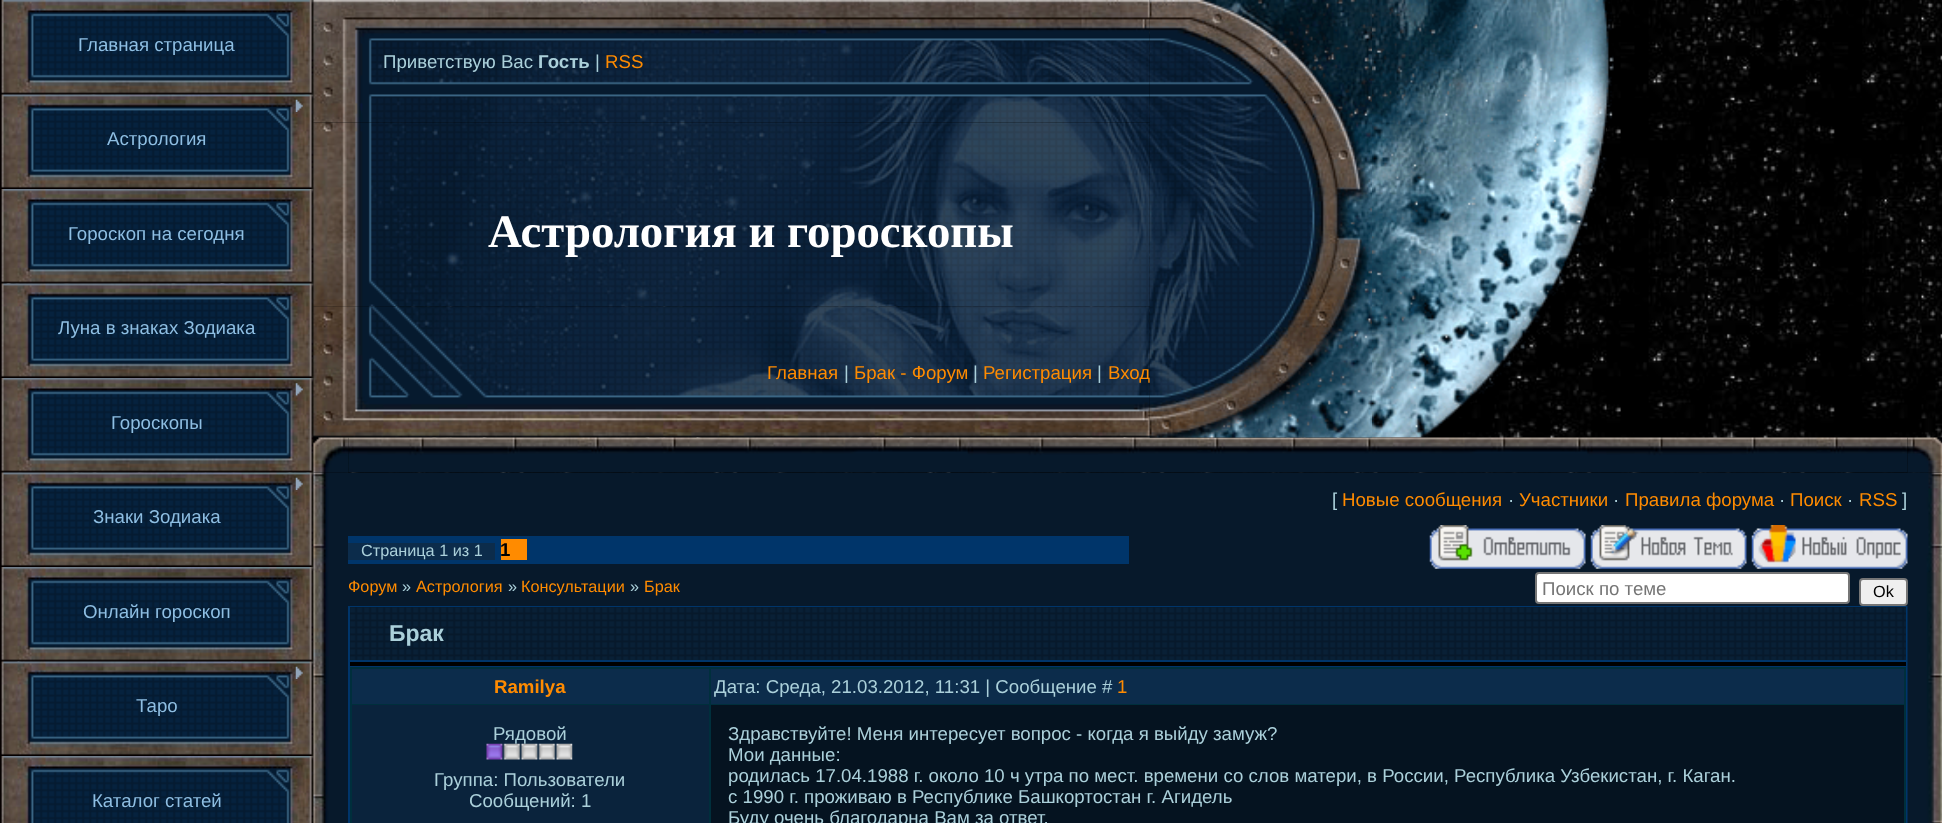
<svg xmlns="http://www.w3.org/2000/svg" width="1942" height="823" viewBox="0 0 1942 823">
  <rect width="100%" height="100%" fill="#fff"/>
  <image x="313" y="0" width="1629" height="823" href="img/1.png"/>
  <image x="0" y="94" width="313" height="568" href="img/2.png"/>
  <image x="313" y="0" width="837" height="123" href="img/14.png"/>
  <image x="0" y="0" width="314" height="95" href="img/3.png"/>
  <image x="313" y="122" width="837" height="185" href="img/15.png"/>
  <image x="0" y="94" width="314" height="95" href="img/4.png"/>
  <image x="295" y="99" width="8" height="13" href="img/5.png"/>
  <image x="0" y="189" width="314" height="95" href="img/6.png"/>
  <image x="313" y="306" width="837" height="132" href="img/16.png"/>
  <image x="0" y="283" width="314" height="95" href="img/7.png"/>
  <image x="1372" y="0" width="242" height="438" href="img/18.png"/>
  <image x="348" y="437" width="1560" height="36" href="img/20.png"/>
  <image x="313" y="472" width="36" height="351" href="img/22.png"/>
  <image x="313" y="437" width="36" height="36" href="img/19.png"/>
  <image x="0" y="378" width="314" height="95" href="img/8.png"/>
  <image x="295" y="383" width="8" height="13" href="img/9.png"/>
  <image x="0" y="472" width="314" height="95" href="img/10.png"/>
  <image x="295" y="477" width="8" height="13" href="img/5.png"/>
  <image x="0" y="567" width="314" height="95" href="img/11.png"/>
  <image x="0" y="661" width="314" height="95" href="img/12.png"/>
  <image x="295" y="666" width="8" height="13" href="img/5.png"/>
  <image x="0" y="756" width="314" height="67" href="img/13.png"/>
  <path d="M348 473h1560v133H348z" fill="#07192b"/>
  <path d="M348 606h1560v217H348z" fill="#00356a"/>
  <image x="1907" y="472" width="35" height="351" href="img/28.png"/>
  <image x="1907" y="437" width="35" height="36" href="img/21.png"/>
  <path d="M348 536h781v28H348z" fill="#00356a"/>
  <path d="M348 543h147v17H348z" fill="#0c2c4b"/>
  <path d="M501 539h26v21H501z" fill="#ff8b00"/>
  <image x="1429" y="525" width="157" height="44" href="img/23.png"/>
  <image x="1590" y="525" width="157" height="44" href="img/24.png"/>
  <image x="1751" y="525" width="157" height="44" href="img/25.png"/>
  <rect x="1536" y="573" width="313" height="30" rx="3" fill="#fff" stroke="#767676" stroke-width="2"/>
  <rect x="1860" y="579" width="47" height="26" rx="3" fill="#efefef" stroke="#767676" stroke-width="2"/>
  <path d="M350 607h1556v53H350z" fill="#092036"/>
  <image x="350" y="607" width="1556" height="53" href="img/26.png"/>
  <path d="M350 662h1556v4H350z" fill="#000"/>
  <path d="M350 667h1556v156H350z" fill="#002f3c"/>
  <path d="M352 669h357v35H352z" fill="#0c2c4b"/>
  <path d="M711 669h1193v35H711z" fill="#0c2c4b"/>
  <path d="M352 705h357v118H352z" fill="#0a233c"/>
  <path d="M711 705h1193v118H711z" fill="#051320"/>
  <g font-family="Liberation Sans" font-size="18.67" fill="#8ebee2">
    <text x="78" y="51">Главная страница</text>
    <text x="107" y="145">Астрология</text>
    <text x="68" y="240">Гороскоп на сегодня</text>
    <text x="58" y="334">Луна в знаках Зодиака</text>
    <text x="111" y="429">Гороскопы</text>
    <text x="93" y="523">Знаки Зодиака</text>
    <text x="83" y="618">Онлайн гороскоп</text>
    <text x="136" y="712">Таро</text>
    <text x="92" y="807">Каталог статей</text>
  </g>
  <text x="383" y="68" font-family="Liberation Sans" font-size="18.67" fill="#abd0da">Приветствую Вас</text>
  <text x="538" y="68" font-family="Liberation Sans" font-size="18.67" font-weight="bold" fill="#abd0da">Гость</text>
  <text x="595" y="68" font-family="Liberation Sans" font-size="18.67" fill="#abd0da">|</text>
  <text x="605" y="68" font-family="Liberation Sans" font-size="18.67" fill="#ff8b00">RSS</text>
  <text x="488" y="247" font-family="Liberation Serif" font-size="46.75" font-weight="bold" fill="#fff">Астрология и гороскопы</text>
  <text x="767" y="379" font-family="Liberation Sans" font-size="18.67" fill="#ff8b00">Главная</text>
  <text x="844" y="379" font-family="Liberation Sans" font-size="18.67" fill="#abd0da">|</text>
  <text x="854" y="379" font-family="Liberation Sans" font-size="18.67" fill="#ff8b00">Брак - Форум</text>
  <text x="973" y="379" font-family="Liberation Sans" font-size="18.67" fill="#abd0da">|</text>
  <text x="983" y="379" font-family="Liberation Sans" font-size="18.67" fill="#ff8b00">Регистрация</text>
  <text x="1097" y="379" font-family="Liberation Sans" font-size="18.67" fill="#abd0da">|</text>
  <text x="1108" y="379" font-family="Liberation Sans" font-size="18.67" fill="#ff8b00">Вход</text>
  <image x="1149" y="0" width="223" height="438" href="img/17.png"/>
  <text x="1332" y="506" font-family="Liberation Sans" font-size="18.67" fill="#abd0da">[</text>
  <text x="1342" y="506" font-family="Liberation Sans" font-size="18.67" fill="#ff8b00">Новые сообщения</text>
  <text x="1508" y="506" font-family="Liberation Sans" font-size="18.67" fill="#abd0da">·</text>
  <text x="1519" y="506" font-family="Liberation Sans" font-size="18.67" fill="#ff8b00">Участники</text>
  <text x="1613" y="506" font-family="Liberation Sans" font-size="18.67" fill="#abd0da">·</text>
  <text x="1625" y="506" font-family="Liberation Sans" font-size="18.67" fill="#ff8b00">Правила форума</text>
  <text x="1779" y="506" font-family="Liberation Sans" font-size="18.67" fill="#abd0da">·</text>
  <text x="1790" y="506" font-family="Liberation Sans" font-size="18.67" fill="#ff8b00">Поиск</text>
  <text x="1847" y="506" font-family="Liberation Sans" font-size="18.67" fill="#abd0da">·</text>
  <text x="1859" y="506" font-family="Liberation Sans" font-size="18.67" fill="#ff8b00">RSS</text>
  <text x="1902" y="506" font-family="Liberation Sans" font-size="18.67" fill="#abd0da">]</text>
  <text x="361" y="556" font-family="Liberation Sans" font-size="16.25" fill="#abd0da">Страница 1 из 1</text>
  <text x="500" y="556" font-family="Liberation Sans" font-size="18.67" font-weight="bold" fill="#000">1</text>
  <text x="348" y="592" font-family="Liberation Sans" font-size="16.25" fill="#ff8b00">Форум</text>
  <text x="402" y="592" font-family="Liberation Sans" font-size="16.25" fill="#abd0da">»</text>
  <text x="416" y="592" font-family="Liberation Sans" font-size="16.25" fill="#ff8b00">Астрология</text>
  <text x="508" y="592" font-family="Liberation Sans" font-size="16.25" fill="#abd0da">»</text>
  <text x="521" y="592" font-family="Liberation Sans" font-size="16.25" fill="#ff8b00">Консультации</text>
  <text x="630" y="592" font-family="Liberation Sans" font-size="16.25" fill="#abd0da">»</text>
  <text x="644" y="592" font-family="Liberation Sans" font-size="16.25" fill="#ff8b00">Брак</text>
  <text x="1542" y="595" font-family="Liberation Sans" font-size="18.67" fill="#757575">Поиск по теме</text>
  <text x="1873" y="597" font-family="Liberation Sans" font-size="16.25" fill="#000">Ok</text>
  <text x="389" y="641" font-family="Liberation Sans" font-size="23" font-weight="bold" fill="#abd0da">Брак</text>
  <text x="494" y="693" font-family="Liberation Sans" font-size="18.67" font-weight="bold" fill="#ff8b00">Ramilya</text>
  <text x="714" y="693" font-family="Liberation Sans" font-size="18.67" fill="#abd0da">Дата: Среда, 21.03.2012, 11:31 | Сообщение #</text>
  <text x="1117" y="693" font-family="Liberation Sans" font-size="18.67" fill="#ff8b00">1</text>
  <text x="493" y="740" font-family="Liberation Sans" font-size="18.67" fill="#abd0da">Рядовой</text>
  <image x="486" y="743" width="87" height="17" href="img/27.png"/>
  <g font-family="Liberation Sans" font-size="18.67" fill="#abd0da">
    <text x="434" y="786">Группа: Пользователи</text>
    <text x="469" y="807">Сообщений: 1</text>
    <text x="728" y="740">Здравствуйте! Меня интересует вопрос - когда я выйду замуж?</text>
    <text x="728" y="761">Мои данные:</text>
    <text x="728" y="782">родилась 17.04.1988 г. около 10 ч утра по мест. времени со слов матери, в России, Республика Узбекистан, г. Каган.</text>
    <text x="728" y="803">с 1990 г. проживаю в Республике Башкортостан г. Агидель</text>
    <text x="728" y="824">Буду очень благодарна Вам за ответ.</text>
  </g>
</svg>
